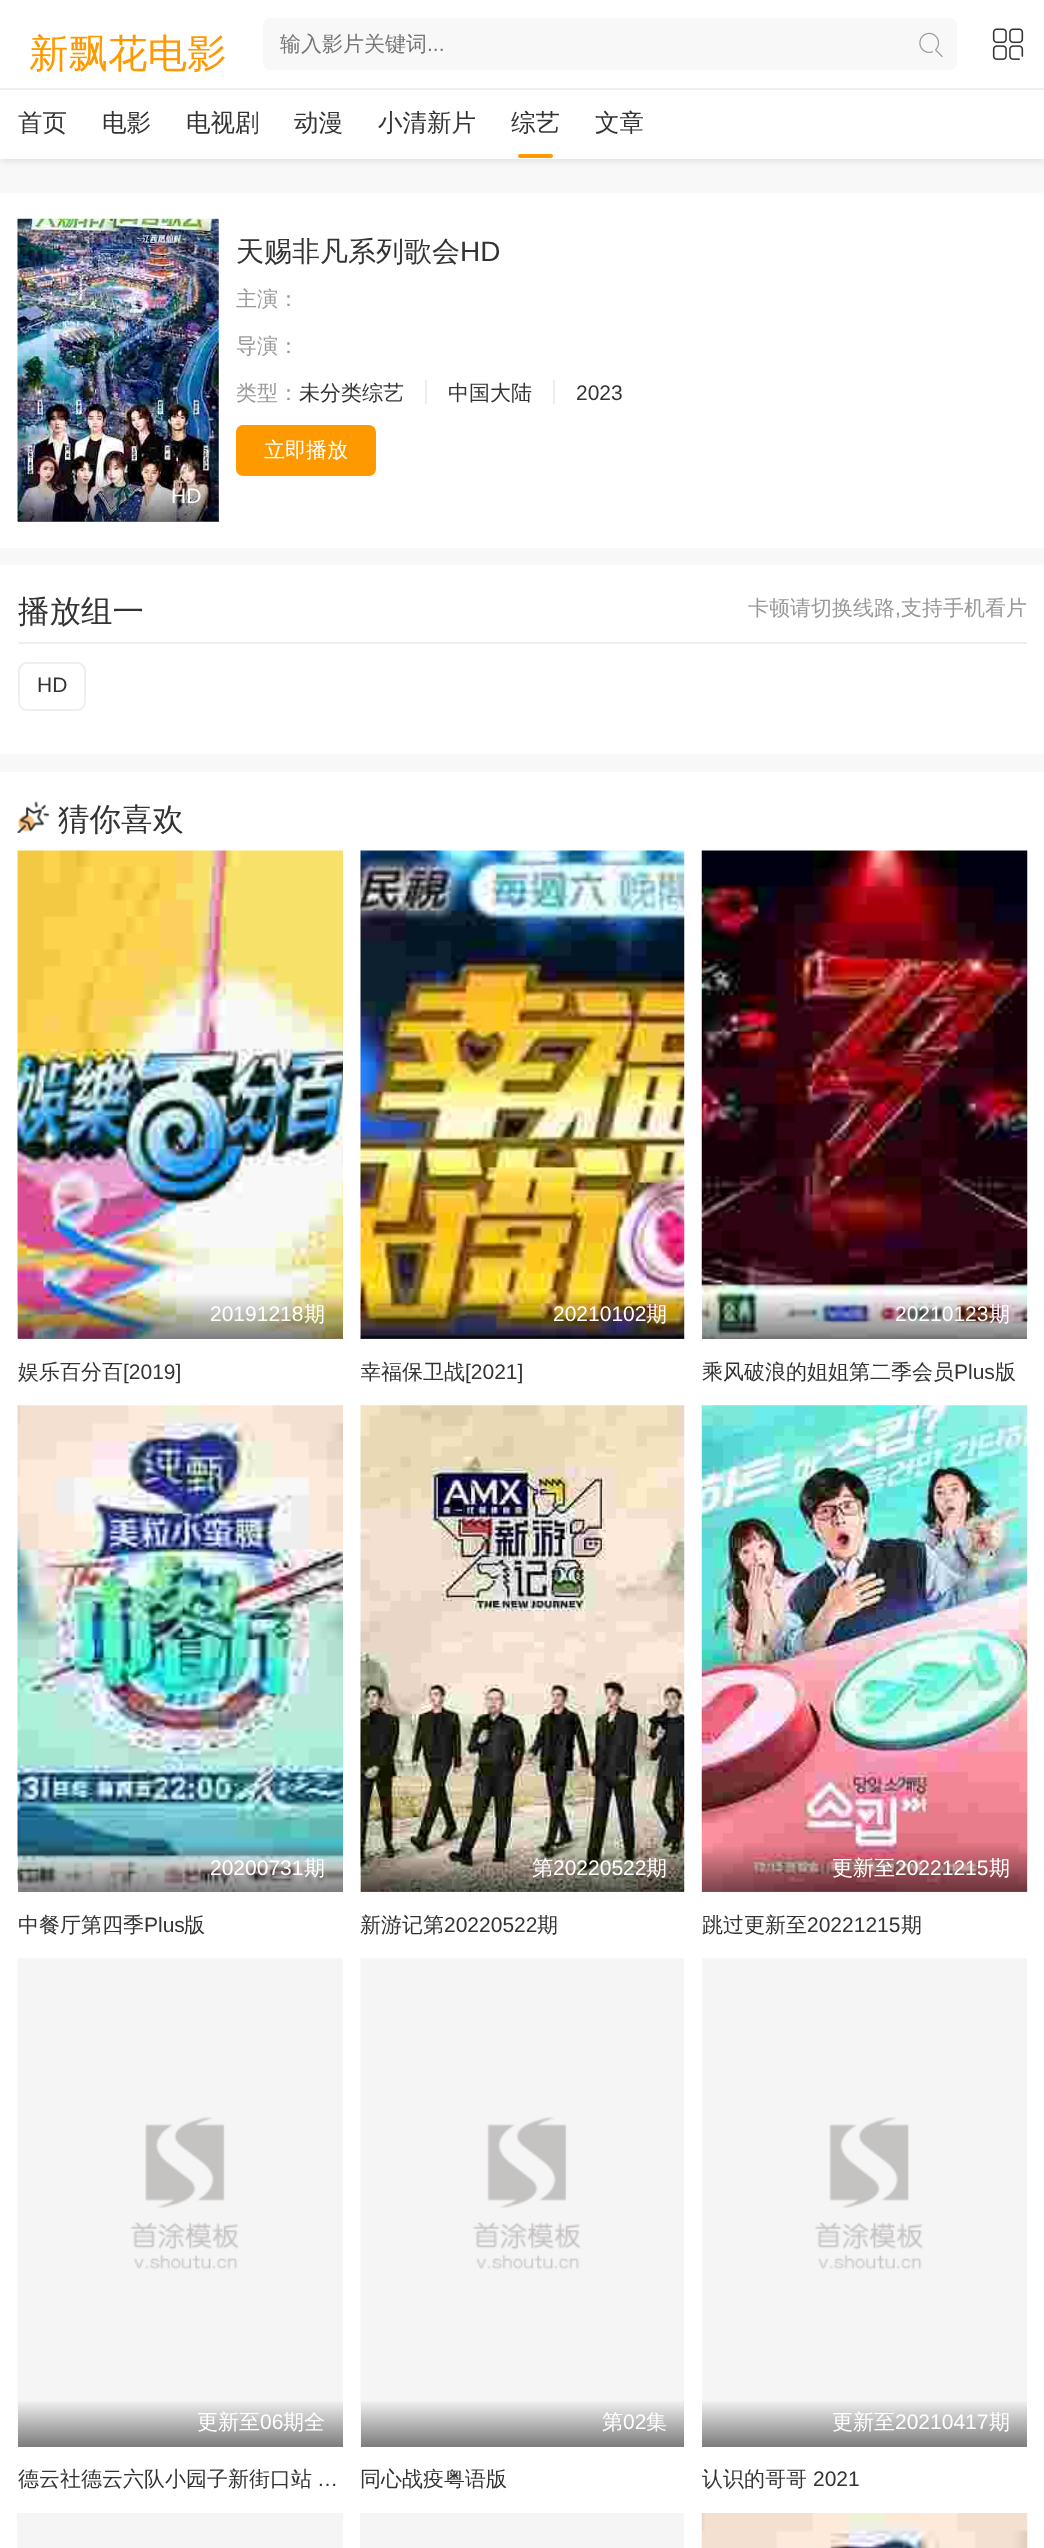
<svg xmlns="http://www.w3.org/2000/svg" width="1044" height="2548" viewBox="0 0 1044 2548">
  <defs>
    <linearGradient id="g1" gradientUnits="userSpaceOnUse" x1="118" y1="474" x2="118" y2="522"><stop offset="0" stop-color="#000" stop-opacity="0"/><stop offset="1" stop-color="#000" stop-opacity="0.5"/></linearGradient>
    <linearGradient id="g2" gradientUnits="userSpaceOnUse" x1="180" y1="1292" x2="180" y2="1339"><stop offset="0" stop-color="#000" stop-opacity="0"/><stop offset="1" stop-color="#000" stop-opacity="0.5"/></linearGradient>
    <linearGradient id="g3" gradientUnits="userSpaceOnUse" x1="522" y1="1292" x2="522" y2="1339"><stop offset="0" stop-color="#000" stop-opacity="0"/><stop offset="1" stop-color="#000" stop-opacity="0.5"/></linearGradient>
    <linearGradient id="g4" gradientUnits="userSpaceOnUse" x1="865" y1="1292" x2="865" y2="1339"><stop offset="0" stop-color="#000" stop-opacity="0"/><stop offset="1" stop-color="#000" stop-opacity="0.5"/></linearGradient>
    <linearGradient id="g5" gradientUnits="userSpaceOnUse" x1="180" y1="1845" x2="180" y2="1892"><stop offset="0" stop-color="#000" stop-opacity="0"/><stop offset="1" stop-color="#000" stop-opacity="0.5"/></linearGradient>
    <linearGradient id="g6" gradientUnits="userSpaceOnUse" x1="522" y1="1845" x2="522" y2="1892"><stop offset="0" stop-color="#000" stop-opacity="0"/><stop offset="1" stop-color="#000" stop-opacity="0.5"/></linearGradient>
    <linearGradient id="g7" gradientUnits="userSpaceOnUse" x1="865" y1="1845" x2="865" y2="1892"><stop offset="0" stop-color="#000" stop-opacity="0"/><stop offset="1" stop-color="#000" stop-opacity="0.5"/></linearGradient>
    <linearGradient id="g8" gradientUnits="userSpaceOnUse" x1="180" y1="2399" x2="180" y2="2447"><stop offset="0" stop-color="#000" stop-opacity="0"/><stop offset="1" stop-color="#000" stop-opacity="0.5"/></linearGradient>
    <linearGradient id="g9" gradientUnits="userSpaceOnUse" x1="522" y1="2399" x2="522" y2="2447"><stop offset="0" stop-color="#000" stop-opacity="0"/><stop offset="1" stop-color="#000" stop-opacity="0.5"/></linearGradient>
    <linearGradient id="g10" gradientUnits="userSpaceOnUse" x1="865" y1="2399" x2="865" y2="2447"><stop offset="0" stop-color="#000" stop-opacity="0"/><stop offset="1" stop-color="#000" stop-opacity="0.5"/></linearGradient>
    <clipPath id="clip1"><path d="M361 1356h323v32H361z"/></clipPath>
  </defs>
  <rect width="100%" height="100%" fill="#f8f8f8"/>
  <path d="M0 2h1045v159H0z" fill="#0000001a" filter="blur(3.5px)"/>
  <path d="M0 0h1044v159H0z" fill="#fff"/>
  <rect x="263" y="18" width="694" height="52" rx="7" fill="#f8f8f8"/>
  <image x="919" y="32" width="24" height="26" href="img/1.png"/>
  <image x="992" y="28" width="32" height="32" href="img/2.png"/>
  <rect y="88" width="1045" height="2" rx="1" fill="#eee"/>
  <rect x="518" y="154" width="35" height="4" rx="2" fill="#f90"/>
  <path d="M0 193h1044v355H0z" fill="#fff"/>
  <path d="M425 380h2v24H425z" fill="#eee"/>
  <path d="M553 380h2v24H553z" fill="#eee"/>
  <rect x="237" y="426" width="138" height="49" rx="6" fill="#f90" stroke="#f90" stroke-width="2"/>
  <image x="17" y="218" width="202" height="304" href="img/3.png"/>
  <path d="M18 476h201v46H18z" fill="url(#g1)"/>
  <path d="M0 565h1044v189H0z" fill="#fff"/>
  <rect x="18" y="642" width="1009" height="2" rx="1" fill="#eee"/>
  <rect x="19" y="663" width="66" height="47" rx="8" fill="none" stroke="#eee" stroke-width="2"/>
  <path d="M0 772h1044v1776H0z" fill="#fff"/>
  <image x="17" y="801" width="32" height="32" href="img/4.png"/>
  <image x="17" y="850" width="326" height="489" href="img/5.png"/>
  <path d="M18 1294h325v45H18z" fill="url(#g2)"/>
  <image x="360" y="850" width="325" height="489" href="img/6.png"/>
  <path d="M361 1294h323v45H361z" fill="url(#g3)"/>
  <image x="701" y="850" width="327" height="489" href="img/7.png"/>
  <path d="M702 1294h325v45H702z" fill="url(#g4)"/>
  <image x="17" y="1405" width="326" height="487" href="img/8.png"/>
  <path d="M18 1847h325v45H18z" fill="url(#g5)"/>
  <image x="360" y="1405" width="325" height="487" href="img/9.png"/>
  <path d="M361 1847h323v45H361z" fill="url(#g6)"/>
  <image x="701" y="1405" width="327" height="487" href="img/10.png"/>
  <path d="M702 1847h325v45H702z" fill="url(#g7)"/>
  <image x="17" y="1958" width="326" height="489" href="img/11.png"/>
  <path d="M18 2401h325v46H18z" fill="url(#g8)"/>
  <image x="360" y="1958" width="324" height="489" href="img/12.png"/>
  <path d="M361 2401h323v46H361z" fill="url(#g9)"/>
  <image x="702" y="1958" width="325" height="489" href="img/13.png"/>
  <path d="M702 2401h325v46H702z" fill="url(#g10)"/>
  <path d="M17 2513h326v35H17z" fill="#f5f5f5"/>
  <path d="M360 2513h324v35H360z" fill="#f5f5f5"/>
  <image x="701" y="2513" width="327" height="35" href="img/14.png"/>
  <text x="29" y="67" font-family="WenQuanYi Zen Hei" font-size="39.5" font-weight="500" fill="#f90">新飘花电影</text>
  <text x="280" y="51" font-family="WenQuanYi Zen Hei" font-size="21" font-weight="500" fill="#757575">输入影片关键词</text>
  <text x="427" y="51" font-family="Liberation Sans" font-size="21" fill="#757575">...</text>
  <g font-family="WenQuanYi Zen Hei" font-size="24.5" font-weight="500" fill="#333">
    <text x="18" y="131">首页</text>
    <text x="102" y="131">电影</text>
    <text x="186" y="131">电视剧</text>
    <text x="294" y="131">动漫</text>
    <text x="378" y="131">小清新片</text>
    <text x="511" y="131">综艺</text>
    <text x="595" y="131">文章</text>
  </g>
  <text x="236" y="261" font-family="WenQuanYi Zen Hei" font-size="28" font-weight="500" fill="#333">天赐非凡系列歌会</text>
  <text x="460" y="261" font-family="Liberation Sans" font-size="28" fill="#333">HD</text>
  <g font-family="WenQuanYi Zen Hei" font-size="21" font-weight="500" fill="#999">
    <text x="236" y="306">主演：</text>
    <text x="236" y="353">导演：</text>
    <text x="236" y="400">类型：</text>
  </g>
  <g font-family="WenQuanYi Zen Hei" font-size="21" font-weight="500" fill="#333">
    <text x="299" y="400">未分类综艺</text>
    <text x="448" y="400">中国大陆</text>
  </g>
  <text x="576" y="400" font-family="Liberation Sans" font-size="21" fill="#333">2023</text>
  <text x="264" y="457" font-family="WenQuanYi Zen Hei" font-size="21" font-weight="500" fill="#fff">立即播放</text>
  <text x="171" y="503" font-family="Liberation Sans" font-size="21" fill="#fff">HD</text>
  <text x="18" y="622" font-family="WenQuanYi Zen Hei" font-size="31.5" font-weight="500" fill="#333">播放组一</text>
  <text x="748" y="615" font-family="WenQuanYi Zen Hei" font-size="21" font-weight="500" fill="#999">卡顿请切换线路</text>
  <text x="895" y="615" font-family="Liberation Sans" font-size="21" fill="#999">,</text>
  <text x="901" y="615" font-family="WenQuanYi Zen Hei" font-size="21" font-weight="500" fill="#999">支持手机看片</text>
  <text x="37" y="692" font-family="Liberation Sans" font-size="21" fill="#333">HD</text>
  <text x="58" y="830" font-family="WenQuanYi Zen Hei" font-size="31.5" font-weight="500" fill="#333">猜你喜欢</text>
  <text x="210" y="1321" font-family="Liberation Sans" font-size="21" fill="#fff">20191218</text>
  <text x="304" y="1321" font-family="WenQuanYi Zen Hei" font-size="21" font-weight="500" fill="#fff">期</text>
  <text x="18" y="1379" font-family="WenQuanYi Zen Hei" font-size="21" font-weight="500" fill="#333">娱乐百分百</text>
  <text x="123" y="1379" font-family="Liberation Sans" font-size="21" fill="#333">[2019]</text>
  <text x="553" y="1321" font-family="Liberation Sans" font-size="21" fill="#fff">20210102</text>
  <text x="646" y="1321" font-family="WenQuanYi Zen Hei" font-size="21" font-weight="500" fill="#fff">期</text>
  <g clip-path="url(#clip1)">
    <text x="360" y="1379" font-family="WenQuanYi Zen Hei" font-size="21" font-weight="500" fill="#333">幸福保卫战</text>
  </g>
  <text x="465" y="1379" font-family="Liberation Sans" font-size="21" fill="#333">[2021]</text>
  <text x="895" y="1321" font-family="Liberation Sans" font-size="21" fill="#fff">20210123</text>
  <text x="989" y="1321" font-family="WenQuanYi Zen Hei" font-size="21" font-weight="500" fill="#fff">期</text>
  <text x="702" y="1379" font-family="WenQuanYi Zen Hei" font-size="21" font-weight="500" fill="#333">乘风破浪的姐姐第二季会员</text>
  <text x="954" y="1379" font-family="Liberation Sans" font-size="21" fill="#333">Plus</text>
  <text x="995" y="1379" font-family="WenQuanYi Zen Hei" font-size="21" font-weight="500" fill="#333">版</text>
  <text x="210" y="1875" font-family="Liberation Sans" font-size="21" fill="#fff">20200731</text>
  <text x="304" y="1875" font-family="WenQuanYi Zen Hei" font-size="21" font-weight="500" fill="#fff">期</text>
  <text x="18" y="1932" font-family="WenQuanYi Zen Hei" font-size="21" font-weight="500" fill="#333">中餐厅第四季</text>
  <text x="144" y="1932" font-family="Liberation Sans" font-size="21" fill="#333">Plus</text>
  <text x="184" y="1932" font-family="WenQuanYi Zen Hei" font-size="21" font-weight="500" fill="#333">版</text>
  <text x="532" y="1875" font-family="WenQuanYi Zen Hei" font-size="21" font-weight="500" fill="#fff">第</text>
  <text x="553" y="1875" font-family="Liberation Sans" font-size="21" fill="#fff">20220522</text>
  <text x="646" y="1875" font-family="WenQuanYi Zen Hei" font-size="21" font-weight="500" fill="#fff">期</text>
  <text x="360" y="1932" font-family="WenQuanYi Zen Hei" font-size="21" font-weight="500" fill="#333">新游记第</text>
  <text x="444" y="1932" font-family="Liberation Sans" font-size="21" fill="#333">20220522</text>
  <text x="537" y="1932" font-family="WenQuanYi Zen Hei" font-size="21" font-weight="500" fill="#333">期</text>
  <text x="832" y="1875" font-family="WenQuanYi Zen Hei" font-size="21" font-weight="500" fill="#fff">更新至</text>
  <text x="895" y="1875" font-family="Liberation Sans" font-size="21" fill="#fff">20221215</text>
  <text x="989" y="1875" font-family="WenQuanYi Zen Hei" font-size="21" font-weight="500" fill="#fff">期</text>
  <text x="702" y="1932" font-family="WenQuanYi Zen Hei" font-size="21" font-weight="500" fill="#333">跳过更新至</text>
  <text x="807" y="1932" font-family="Liberation Sans" font-size="21" fill="#333">20221215</text>
  <text x="901" y="1932" font-family="WenQuanYi Zen Hei" font-size="21" font-weight="500" fill="#333">期</text>
  <text x="197" y="2429" font-family="WenQuanYi Zen Hei" font-size="21" font-weight="500" fill="#fff">更新至</text>
  <text x="260" y="2429" font-family="Liberation Sans" font-size="21" fill="#fff">06</text>
  <text x="283" y="2429" font-family="WenQuanYi Zen Hei" font-size="21" font-weight="500" fill="#fff">期全</text>
  <text x="18" y="2486" font-family="WenQuanYi Zen Hei" font-size="21" font-weight="500" fill="#333">德云社德云六队小园子新街口站</text>
  <text x="317" y="2486" font-family="Liberation Sans" font-size="21" fill="#333">…</text>
  <text x="602" y="2429" font-family="WenQuanYi Zen Hei" font-size="21" font-weight="500" fill="#fff">第</text>
  <text x="623" y="2429" font-family="Liberation Sans" font-size="21" fill="#fff">02</text>
  <text x="646" y="2429" font-family="WenQuanYi Zen Hei" font-size="21" font-weight="500" fill="#fff">集</text>
  <text x="360" y="2486" font-family="WenQuanYi Zen Hei" font-size="21" font-weight="500" fill="#333">同心战疫粤语版</text>
  <text x="832" y="2429" font-family="WenQuanYi Zen Hei" font-size="21" font-weight="500" fill="#fff">更新至</text>
  <text x="895" y="2429" font-family="Liberation Sans" font-size="21" fill="#fff">20210417</text>
  <text x="989" y="2429" font-family="WenQuanYi Zen Hei" font-size="21" font-weight="500" fill="#fff">期</text>
  <text x="702" y="2486" font-family="WenQuanYi Zen Hei" font-size="21" font-weight="500" fill="#333">认识的哥哥</text>
  <text x="813" y="2486" font-family="Liberation Sans" font-size="21" fill="#333">2021</text>
</svg>
